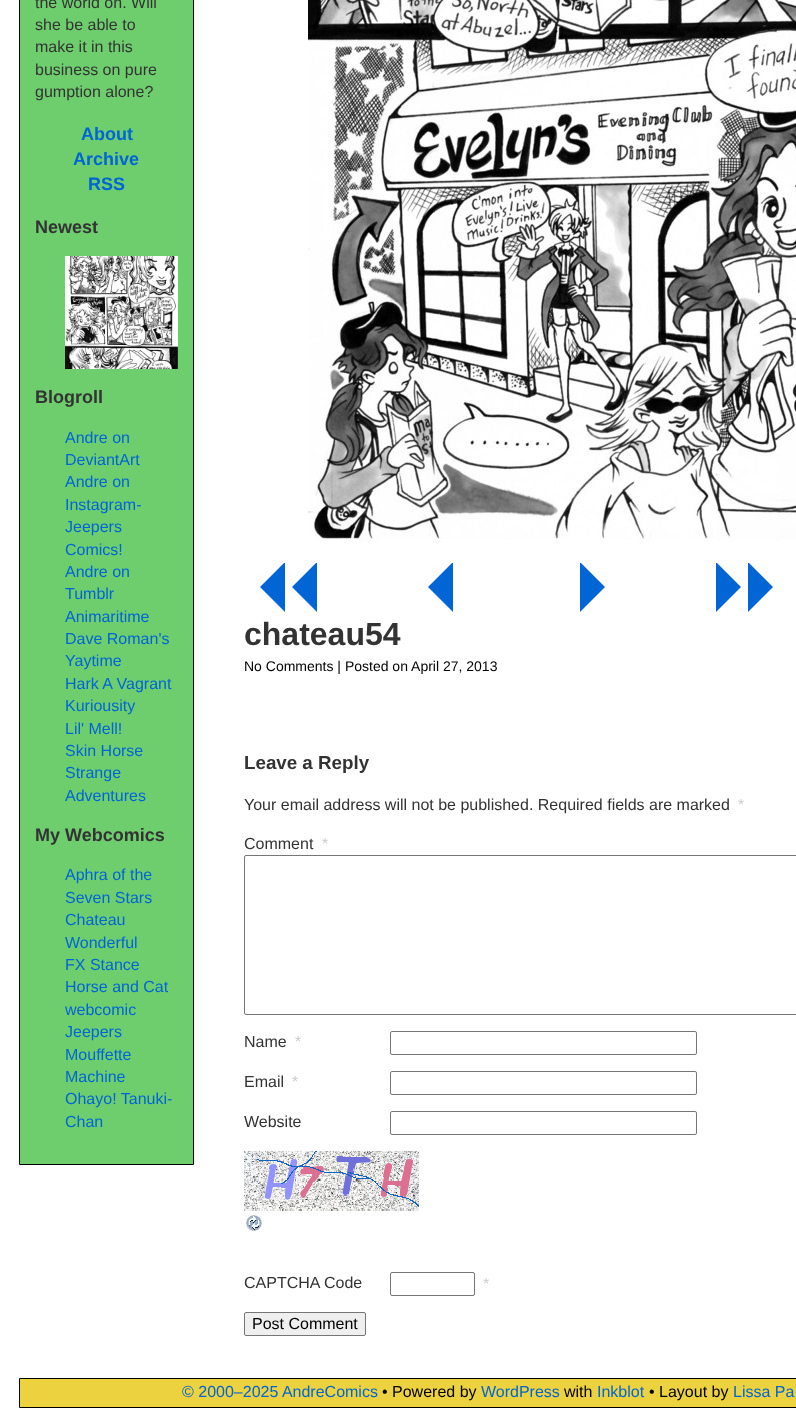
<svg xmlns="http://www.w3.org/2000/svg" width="796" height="1424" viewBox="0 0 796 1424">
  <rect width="100%" height="100%" fill="#fff"/>
  <path d="M19.5 -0.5h174v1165H19.5z" fill="#6ece6e" stroke="#000"/>
  <image x="65" y="256" width="113" height="113" href="img/1.png"/>
  <image x="308" y="0" width="488" height="543" href="img/2.png"/>
  <image x="260" y="563" width="57" height="49" href="img/3.png"/>
  <image x="428" y="563" width="25" height="49" href="img/4.png"/>
  <image x="580" y="563" width="25" height="49" href="img/5.png"/>
  <image x="716" y="563" width="57" height="49" href="img/6.png"/>
  <rect x="244.5" y="855.5" width="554" height="159" rx="1.5" fill="none" stroke="#767676"/>
  <rect x="390.5" y="1031.5" width="306" height="23" rx="1.5" fill="none" stroke="#767676"/>
  <rect x="390.5" y="1071.5" width="306" height="23" rx="1.5" fill="none" stroke="#767676"/>
  <rect x="390.5" y="1111.5" width="306" height="23" rx="1.5" fill="none" stroke="#767676"/>
  <image x="244" y="1151" width="175" height="60" href="img/7.png"/>
  <image x="246" y="1215" width="16" height="16" href="img/8.png"/>
  <rect x="390.5" y="1272.5" width="84" height="23" rx="1.5" fill="none" stroke="#767676"/>
  <rect x="244.5" y="1312.5" width="121" height="23" rx="1.5" fill="#efefef" stroke="#767676"/>
  <path d="M19.5 1378.5h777v29H19.5z" fill="#ecd23e" stroke="#000"/>
  <g font-family="Liberation Sans" font-size="16" fill="#333">
    <text x="35" y="8">the world on. Will</text>
    <text x="35" y="30">she be able to</text>
    <text x="35" y="52">make it in this</text>
    <text x="35" y="75">business on pure</text>
    <text x="35" y="97">gumption alone?</text>
  </g>
  <g font-family="Liberation Sans" font-size="18" font-weight="bold" fill="#0165d5">
    <text x="81" y="140">About</text>
    <text x="73" y="165">Archive</text>
    <text x="88" y="190">RSS</text>
  </g>
  <g font-family="Liberation Sans" font-size="18" font-weight="bold" fill="#333">
    <text x="35" y="233">Newest</text>
    <text x="35" y="403">Blogroll</text>
  </g>
  <g font-family="Liberation Sans" font-size="16" fill="#0165d5">
    <text x="65" y="443">Andre on</text>
    <text x="65" y="465">DeviantArt</text>
    <text x="65" y="487">Andre on</text>
    <text x="65" y="510">Instagram-</text>
    <text x="65" y="532">Jeepers</text>
    <text x="65" y="555">Comics!</text>
    <text x="65" y="577">Andre on</text>
    <text x="65" y="599">Tumblr</text>
    <text x="65" y="622">Animaritime</text>
    <text x="65" y="644">Dave Roman's</text>
    <text x="65" y="666">Yaytime</text>
    <text x="65" y="689">Hark A Vagrant</text>
    <text x="65" y="711">Kuriousity</text>
    <text x="65" y="734">Lil' Mell!</text>
    <text x="65" y="756">Skin Horse</text>
    <text x="65" y="778">Strange</text>
    <text x="65" y="801">Adventures</text>
  </g>
  <text x="35" y="841" font-family="Liberation Sans" font-size="18" font-weight="bold" fill="#333">My Webcomics</text>
  <g font-family="Liberation Sans" font-size="16" fill="#0165d5">
    <text x="65" y="880">Aphra of the</text>
    <text x="65" y="903">Seven Stars</text>
    <text x="65" y="925">Chateau</text>
    <text x="65" y="948">Wonderful</text>
    <text x="65" y="970">FX Stance</text>
    <text x="65" y="992">Horse and Cat</text>
    <text x="65" y="1015">webcomic</text>
    <text x="65" y="1037">Jeepers</text>
    <text x="65" y="1060">Mouffette</text>
    <text x="65" y="1082">Machine</text>
    <text x="65" y="1104">Ohayo! Tanuki-</text>
    <text x="65" y="1127">Chan</text>
  </g>
  <text x="244" y="645" font-family="Liberation Sans" font-size="32" font-weight="bold" fill="#333">chateau54</text>
  <text x="244" y="671" font-family="Liberation Sans" font-size="14" fill="#000">No Comments | Posted on April 27, 2013</text>
  <text x="244" y="769" font-family="Liberation Sans" font-size="18.75" font-weight="bold" fill="#333">Leave a Reply</text>
  <text x="244" y="810" font-family="Liberation Sans" font-size="16" fill="#333">Your email address will not be published. Required fields are marked</text>
  <text x="738" y="810" font-family="Liberation Sans" font-size="16" fill="#ccc">*</text>
  <text x="244" y="849" font-family="Liberation Sans" font-size="16" fill="#333">Comment</text>
  <text x="322" y="849" font-family="Liberation Sans" font-size="16" fill="#ccc">*</text>
  <text x="244" y="1047" font-family="Liberation Sans" font-size="16" fill="#333">Name</text>
  <text x="295" y="1047" font-family="Liberation Sans" font-size="16" fill="#ccc">*</text>
  <text x="244" y="1087" font-family="Liberation Sans" font-size="16" fill="#333">Email</text>
  <text x="292" y="1087" font-family="Liberation Sans" font-size="16" fill="#ccc">*</text>
  <g font-family="Liberation Sans" font-size="16" fill="#333">
    <text x="244" y="1127">Website</text>
    <text x="244" y="1288">CAPTCHA Code</text>
  </g>
  <text x="483" y="1289" font-family="Liberation Sans" font-size="16" fill="#ccc">*</text>
  <text x="252" y="1329" font-family="Liberation Sans" font-size="16" fill="#000">Post Comment</text>
  <text x="182" y="1397" font-family="Liberation Sans" font-size="16" fill="#0165d5">© 2000–2025 AndreComics</text>
  <text x="382" y="1397" font-family="Liberation Sans" font-size="16" fill="#000">• Powered by</text>
  <text x="481" y="1397" font-family="Liberation Sans" font-size="16" fill="#0165d5">WordPress</text>
  <text x="564" y="1397" font-family="Liberation Sans" font-size="16" fill="#000">with</text>
  <text x="597" y="1397" font-family="Liberation Sans" font-size="16" fill="#0165d5">Inkblot</text>
  <text x="649" y="1397" font-family="Liberation Sans" font-size="16" fill="#000">• Layout by</text>
  <text x="733" y="1397" font-family="Liberation Sans" font-size="16" fill="#0165d5">Lissa Pa</text>
</svg>
